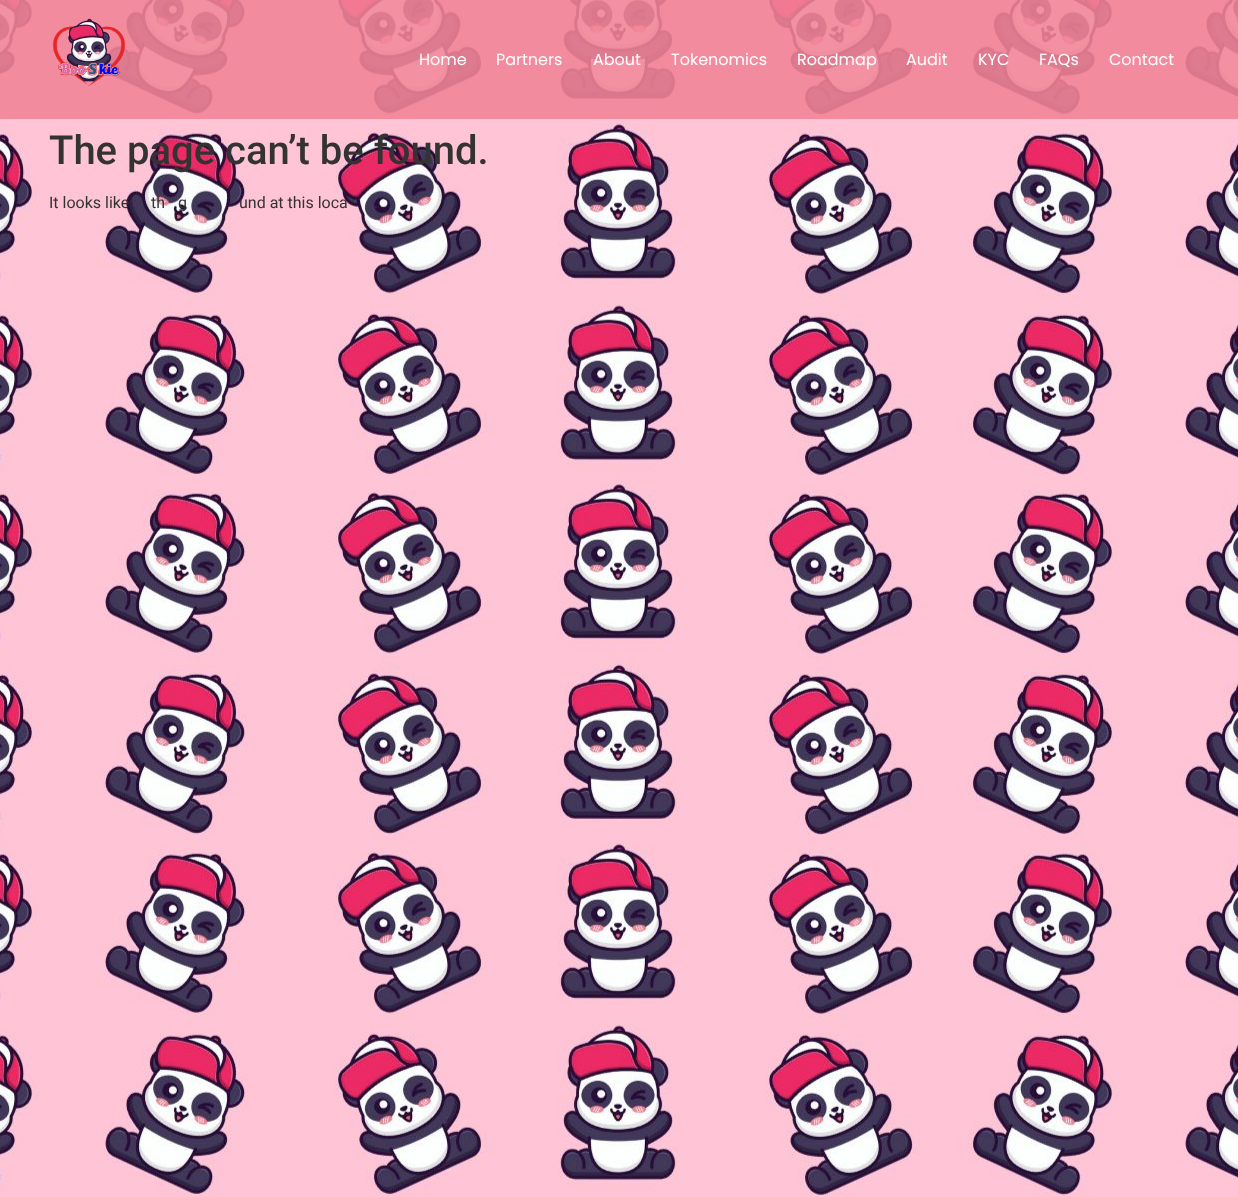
<svg xmlns="http://www.w3.org/2000/svg" width="1238" height="1197" viewBox="0 0 1238 1197">
  <rect width="100%" height="100%" fill="#fff"/>
  <image x="0" y="0" width="1238" height="1197" href="img/1.png"/>
  <path d="M0 0h1238v119H0z" fill="#f28396e3"/>
  <image x="53" y="18" width="72" height="68" href="img/2.png"/>
  <g font-family="Poppins" font-size="16" fill="#fff">
    <text x="419" y="65">Home</text>
    <text x="496" y="65">Partners</text>
    <text x="593" y="65">About</text>
    <text x="671" y="65">Tokenomics</text>
    <text x="797" y="65">Roadmap</text>
    <text x="906" y="65">Audit</text>
    <text x="978" y="65">KYC</text>
    <text x="1039" y="65">FAQs</text>
    <text x="1109" y="65">Contact</text>
  </g>
  <text x="49" y="164" font-family="Roboto" font-size="40" font-weight="500" fill="#333">The page can’t be found.</text>
  <g font-family="Roboto" font-size="16" fill="#333">
    <text x="49" y="208">It looks like</text>
    <text x="151" y="208">th</text>
    <text x="178" y="208">g</text>
    <text x="239" y="208">und at this loca</text>
    <text x="374" y="208">.</text>
  </g>
</svg>
